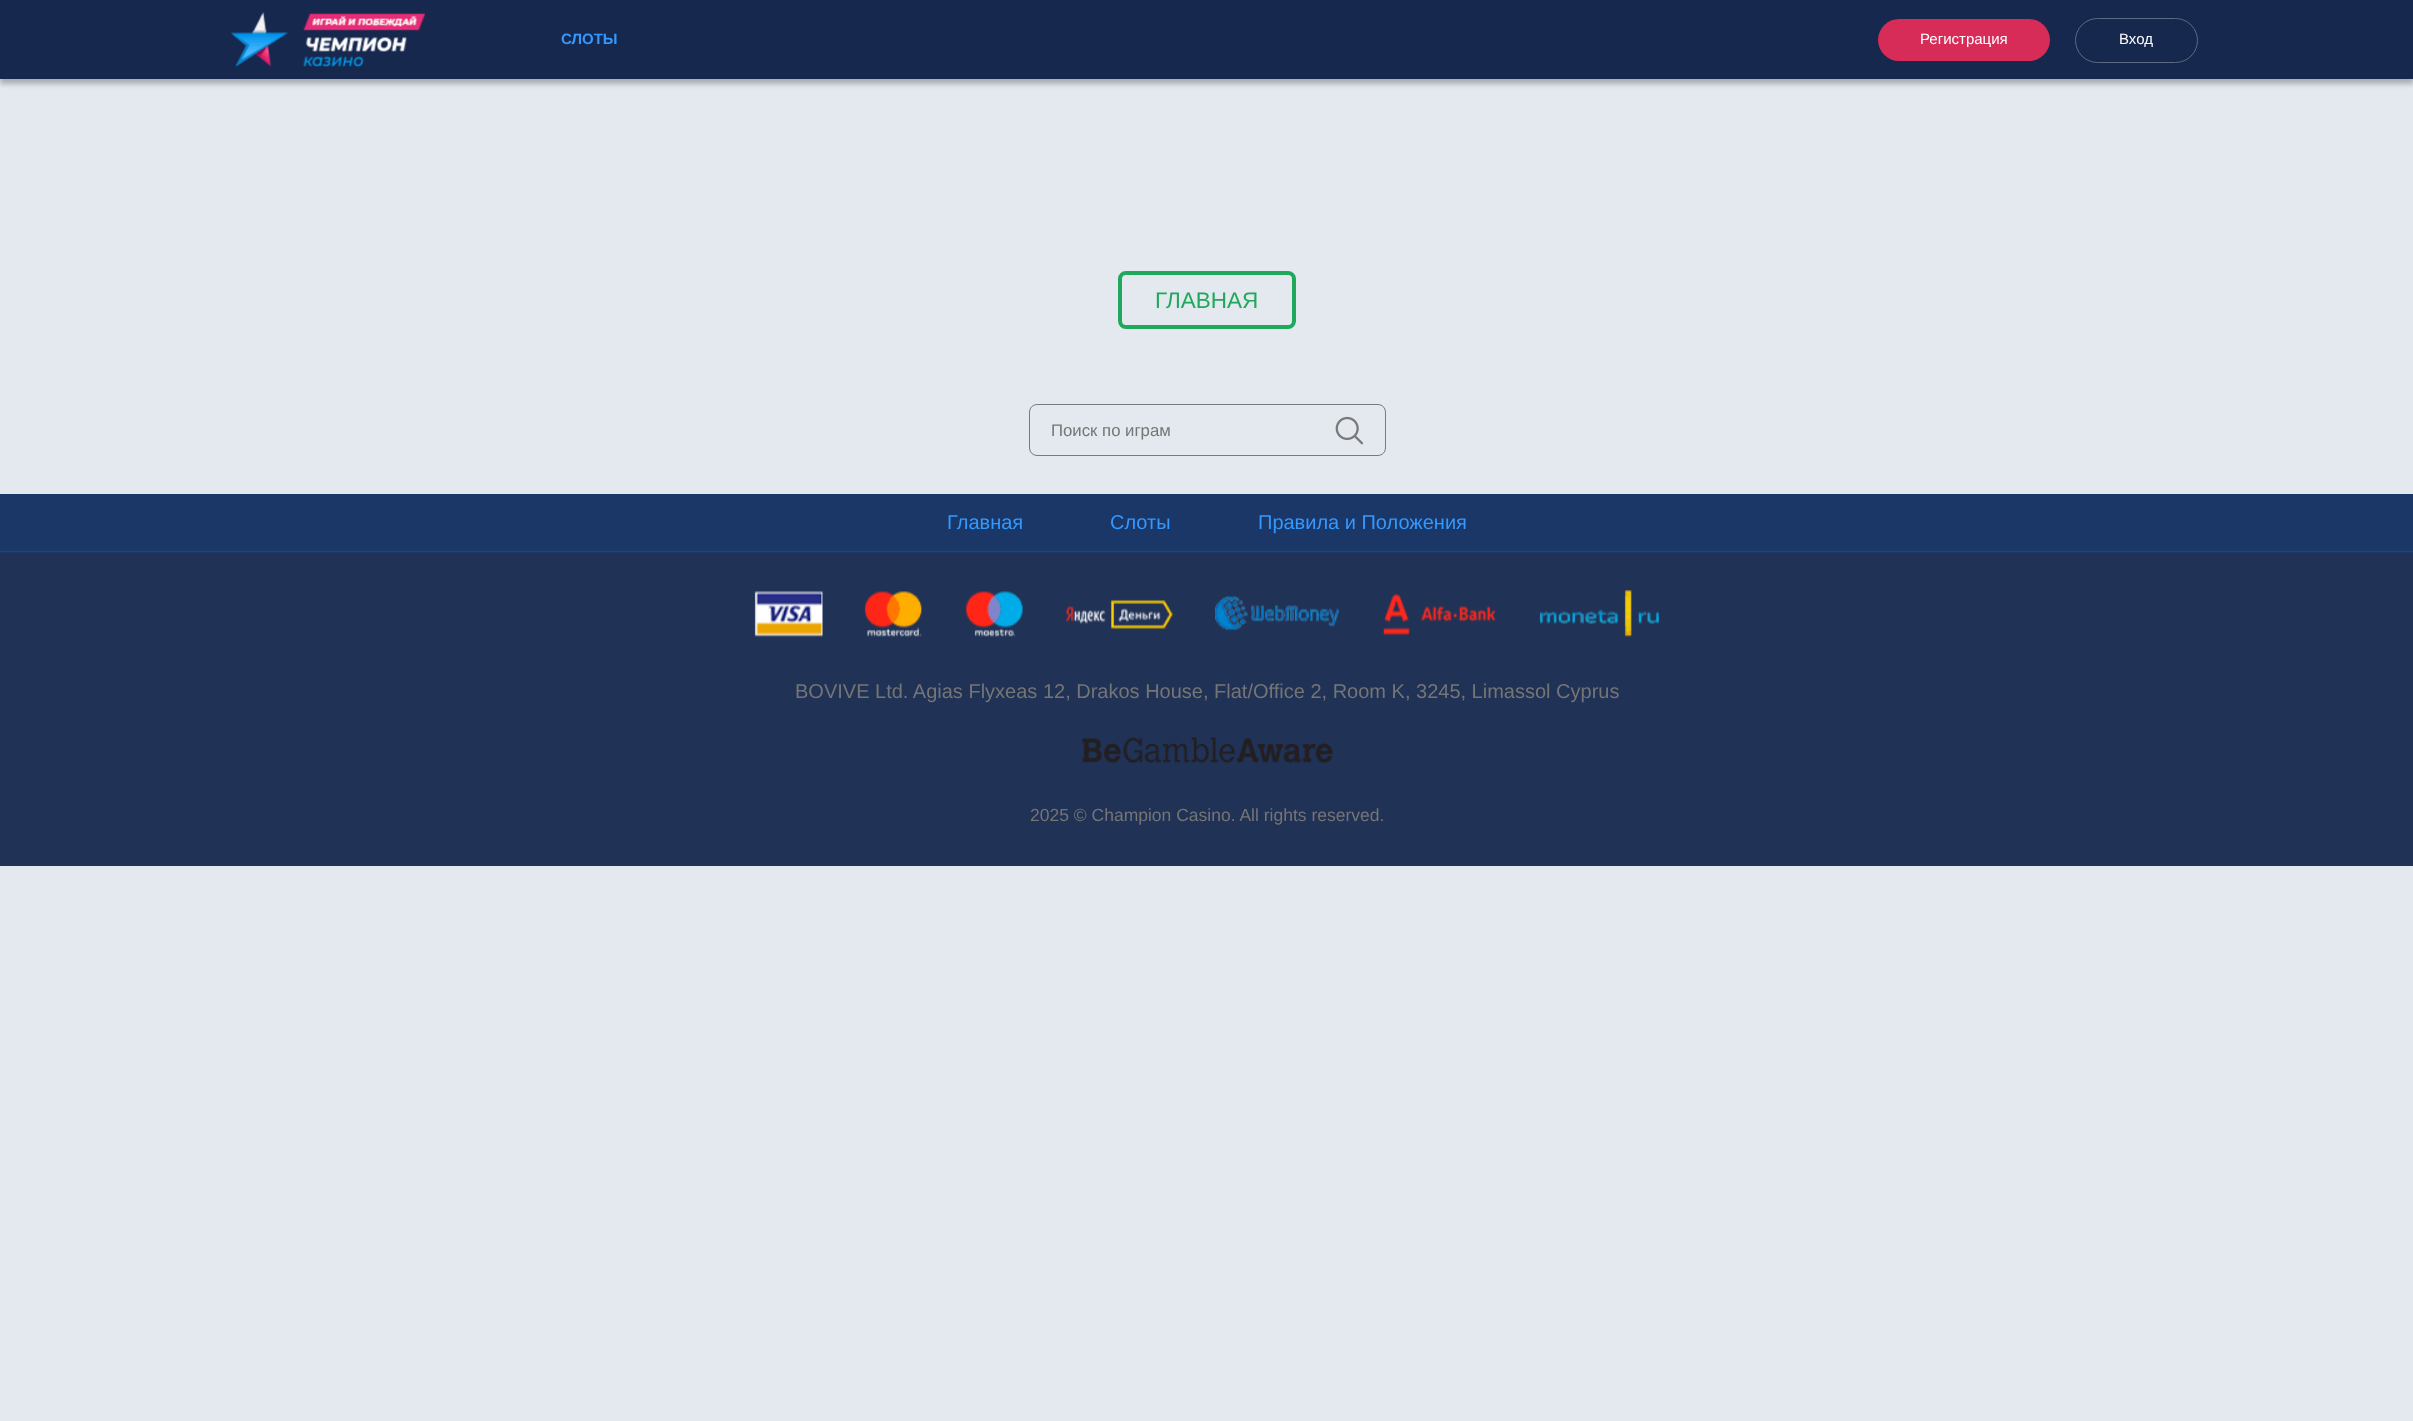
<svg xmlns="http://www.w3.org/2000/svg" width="2413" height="1421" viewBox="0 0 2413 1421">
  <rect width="100%" height="100%" fill="#e3e9ee"/>
  <path d="M0 5h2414v79H0z" fill="#00000040" filter="blur(2.5px)"/>
  <path d="M0 0h2413v79H0z" fill="#16284e"/>
  <image x="231" y="12" width="194" height="55" href="img/1.png"/>
  <rect x="1878" y="19" width="172" height="42" rx="21" fill="#d62c57"/>
  <rect x="2075.5" y="18.5" width="122" height="44" rx="22" fill="none" stroke="#5c6983"/>
  <rect x="1120" y="273" width="174" height="54" rx="6" fill="none" stroke="#20a85b" stroke-width="4"/>
  <rect x="1029.5" y="404.5" width="356" height="51" rx="7.5" fill="none" stroke="#7a7a7a"/>
  <image x="1335" y="416" width="29" height="29" href="img/2.png"/>
  <path d="M0 553h2413v313H0z" fill="#203256"/>
  <path d="M0 494h2413v59H0z" fill="#1a3768"/>
  <path d="M0 551h2413v1H0z" fill="#3f3f3f"/>
  <image x="754" y="591" width="69" height="46" href="img/3.png"/>
  <image x="864" y="591" width="58" height="46" href="img/4.png"/>
  <image x="966" y="591" width="57" height="46" href="img/5.png"/>
  <image x="1066" y="599" width="107" height="30" href="img/6.png"/>
  <image x="1214" y="596" width="125" height="35" href="img/7.png"/>
  <image x="1383" y="593" width="113" height="43" href="img/8.png"/>
  <image x="1539" y="590" width="120" height="47" href="img/9.png"/>
  <image x="1082" y="737" width="251" height="26" href="img/10.png"/>
  <text x="561" y="44" font-family="Liberation Sans" font-size="15" font-weight="bold" fill="#39f">СЛОТЫ</text>
  <g font-family="Liberation Sans" font-size="15" fill="#fff">
    <text x="1920" y="44">Регистрация</text>
    <text x="2119" y="44">Вход</text>
  </g>
  <text x="1155" y="308" font-family="Liberation Sans" font-size="22.5" fill="#20a85b">ГЛАВНАЯ</text>
  <text x="1051" y="436" font-family="Liberation Sans" font-size="16.75" fill="#757575">Поиск по играм</text>
  <g font-family="Liberation Sans" font-size="20" fill="#39f">
    <text x="947" y="529">Главная</text>
    <text x="1110" y="529">Слоты</text>
    <text x="1258" y="529">Правила и Положения</text>
  </g>
  <text x="795" y="698" font-family="Liberation Sans" font-size="20" fill="#757575">BOVIVE Ltd. Agias Flyxeas 12, Drakos House, Flat/Office 2, Room K, 3245, Limassol Cyprus</text>
  <text x="1030" y="821" font-family="Liberation Sans" font-size="17.5" fill="#757575">2025 © Champion Casino. All rights reserved.</text>
</svg>
